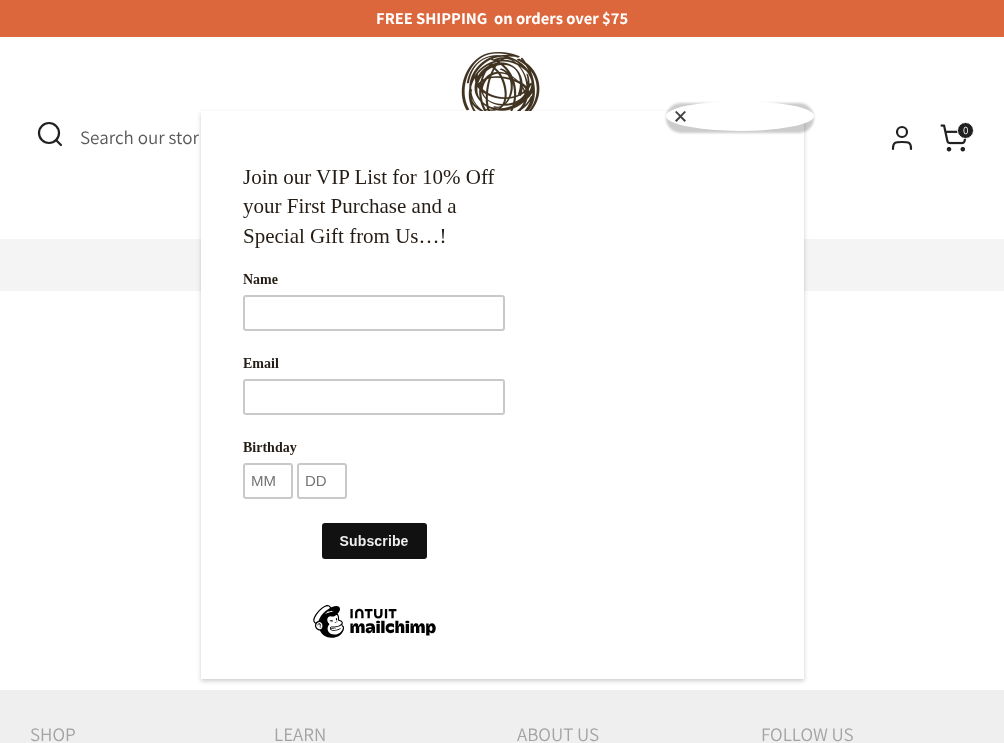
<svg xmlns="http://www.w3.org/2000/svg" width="1004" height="743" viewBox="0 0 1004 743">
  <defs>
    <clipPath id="clip1"><path d="M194 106H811V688H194ZM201 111H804V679H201Z" clip-rule="evenodd"/></clipPath>
  </defs>
  <rect width="100%" height="100%" fill="#fff"/>
  <path d="M0 0h1004v37H0z" fill="#dc673c"/>
  <image x="461" y="52" width="79" height="59" href="img/1.png"/>
  <circle cx="49" cy="133" r="10" fill="none" stroke="#202020" stroke-width="2.2"/>
  <path d="M61 145L56 140" fill="none" stroke="#202020" stroke-width="2.2" stroke-linecap="round" stroke-linejoin="round"/>
  <path d="M911 149C911 142 908.5 142 902 142C895.5 142 893 142 893 149" fill="none" stroke="#202020" stroke-width="2.2" stroke-linecap="round" stroke-linejoin="round"/>
  <circle cx="902" cy="132" r="5" fill="none" stroke="#202020" stroke-width="2.2"/>
  <image x="940" y="124" width="27" height="28" href="img/2.png"/>
  <circle cx="965.5" cy="130.5" r="8" fill="#202020" stroke="#fff"/>
  <path d="M0 239h1004v52H0z" fill="#f4f4f4"/>
  <g clip-path="url(#clip1)">
    <path d="M201 113h603v568H201z" fill="#00000033" filter="blur(2px)"/>
  </g>
  <image x="201" y="111" width="603" height="527" href="img/3.png"/>
  <rect x="666" y="103" width="148" height="30" rx="15" fill="#00000033" filter="blur(1px)"/>
  <ellipse cx="740" cy="116" rx="74" ry="15" fill="#fff"/>
  <path d="M684.5 111L686 112L676.5 122L675 120.5Z" fill="#414141"/>
  <path d="M675 112L676.5 111L686 120.5L684.5 122Z" fill="#414141"/>
  <path d="M0 690h1004v53H0z" fill="#efefef"/>
  <text x="376" y="24" font-family="Assistant" font-size="16.6" font-weight="bold" fill="#fff" xml:space="preserve">FREE SHIPPING  on orders over $75</text>
  <text x="80" y="144" font-family="Assistant" font-size="19" fill="#585858">Search our stor</text>
  <text x="963" y="134" font-family="Assistant" font-size="11" fill="#fff">0</text>
  <g font-family="Assistant" font-size="19" fill="#a3a3a3">
    <text x="30" y="741">SHOP</text>
    <text x="274" y="741">LEARN</text>
    <text x="517" y="741">ABOUT US</text>
    <text x="761" y="741">FOLLOW US</text>
  </g>
</svg>
